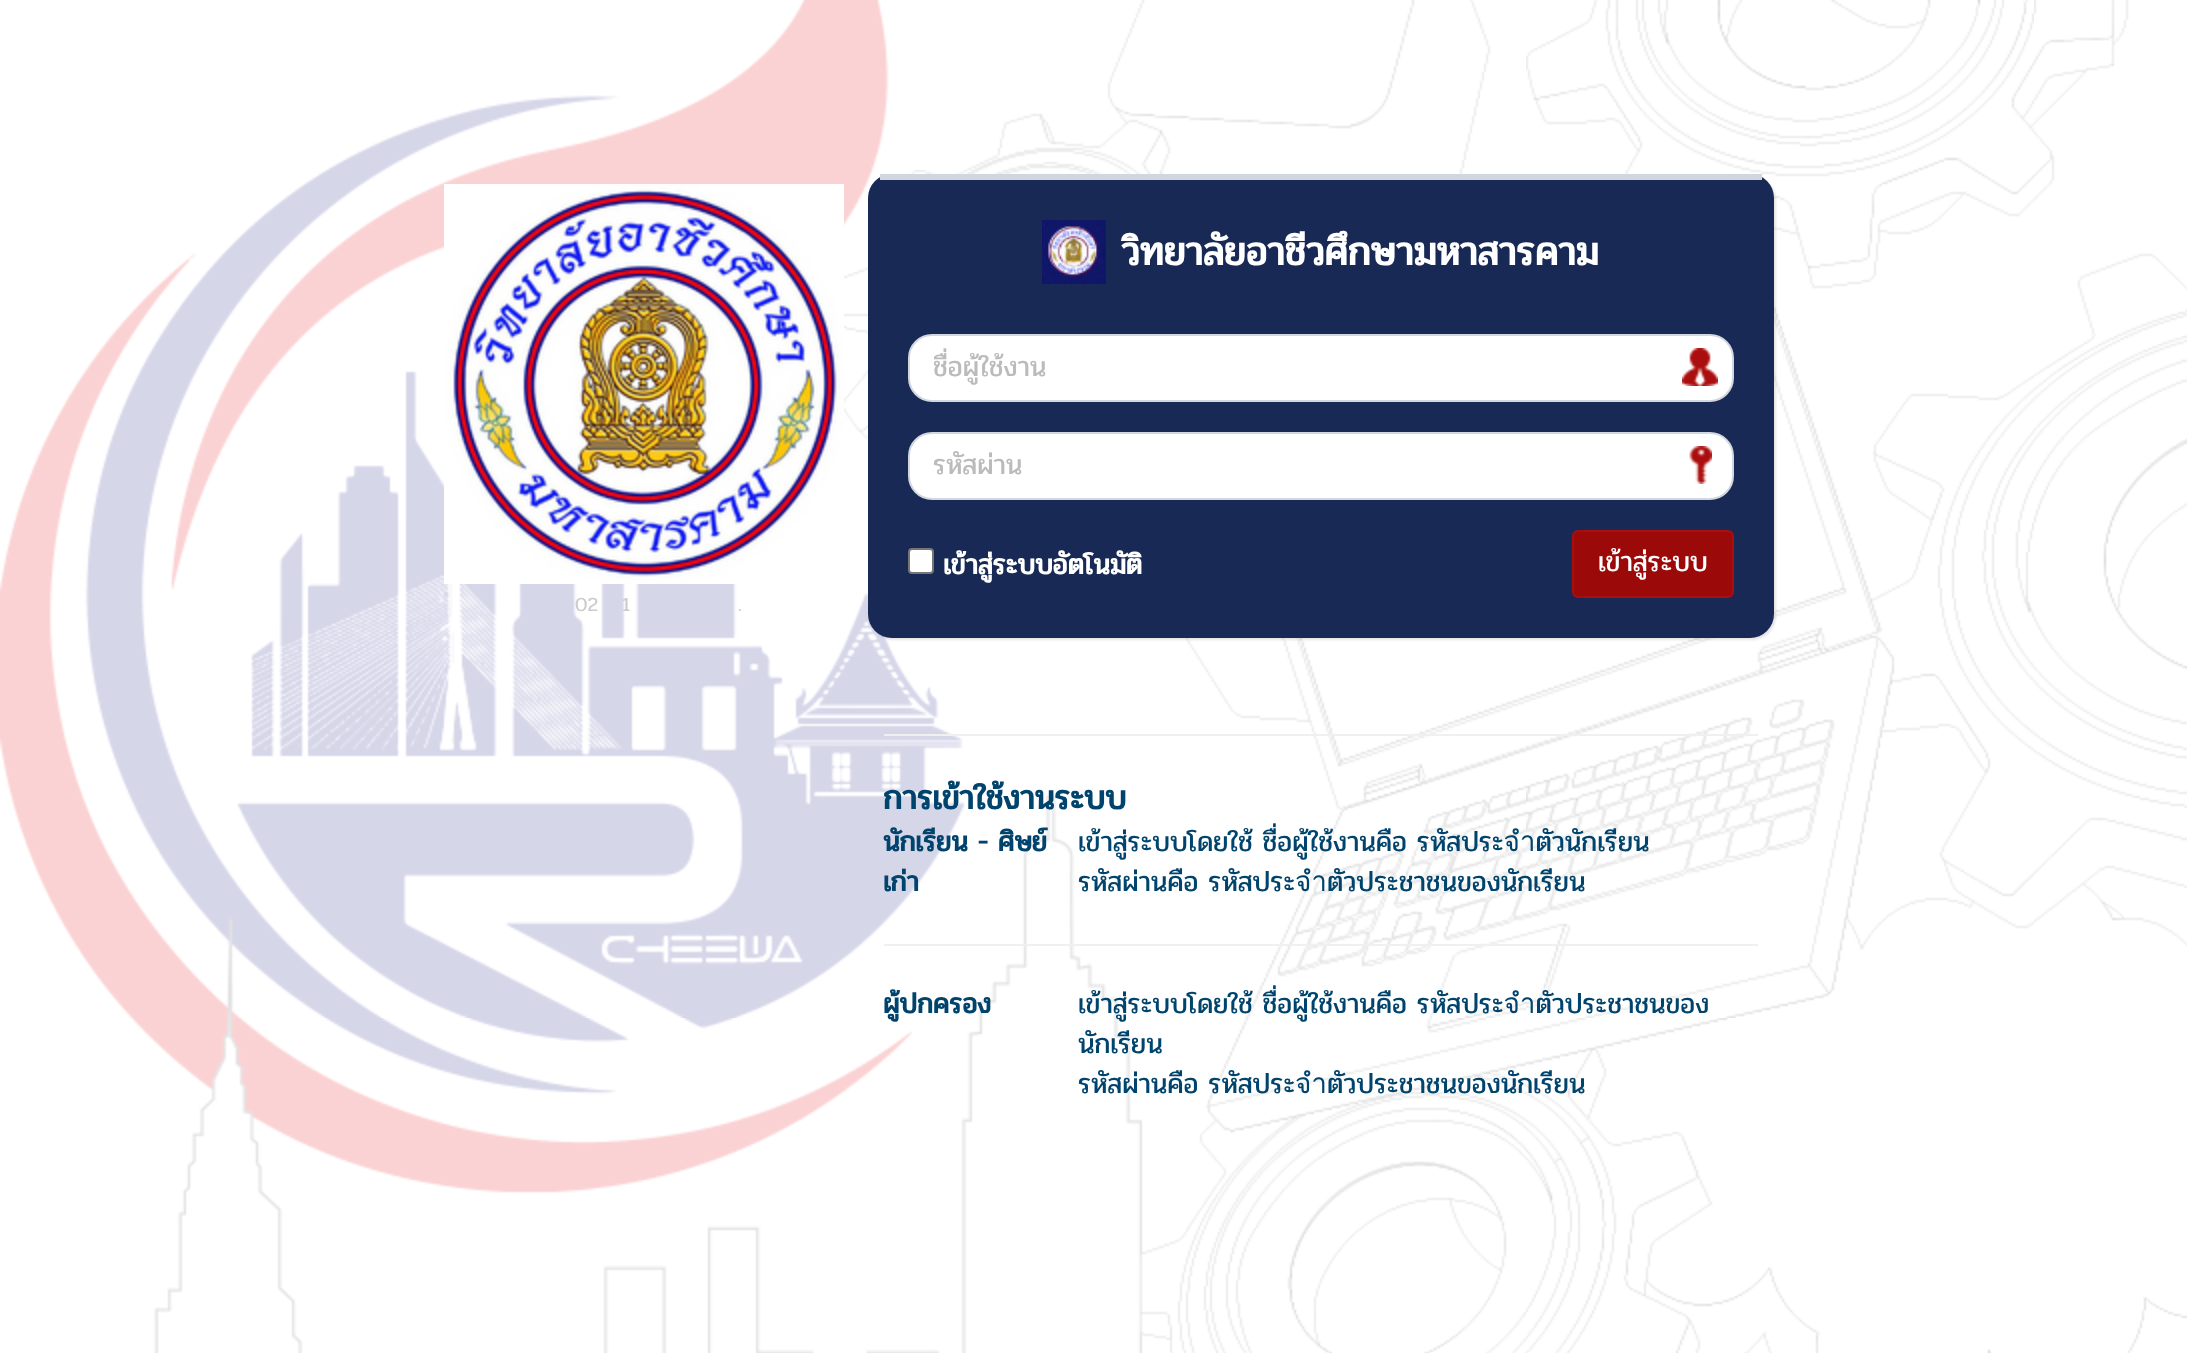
<svg xmlns="http://www.w3.org/2000/svg" width="2187" height="1353" viewBox="0 0 2187 1353">
  <defs>
    <clipPath id="clip1"><path d="M934 346h774v42H934z"/></clipPath>
  </defs>
  <rect width="100%" height="100%" fill="#fff"/>
  <image x="0" y="0" width="2187" height="1353" href="img/1.png"/>
  <rect x="870" y="176" width="906" height="464" rx="24" fill="#0000001a" filter="blur(1px)"/>
  <rect x="868" y="174" width="906" height="464" rx="24" fill="#172954"/>
  <path d="M880 174h882v6H880z" fill="#d2d6de"/>
  <image x="1042" y="220" width="64" height="64" href="img/2.png"/>
  <rect x="909" y="335" width="824" height="66" rx="23" fill="#fff" stroke="#d2d6de" stroke-width="2"/>
  <image x="1682" y="348" width="36" height="38" href="img/3.png"/>
  <rect x="909" y="433" width="824" height="66" rx="23" fill="#fff" stroke="#d2d6de" stroke-width="2"/>
  <image x="1689" y="446" width="23" height="38" href="img/4.png"/>
  <rect x="909" y="549" width="24" height="24" rx="3" fill="#fff" stroke="#767676" stroke-width="2"/>
  <rect x="1573" y="531" width="160" height="66" rx="5" fill="#9c0909" stroke="#aa0e0e" stroke-width="2"/>
  <image x="444" y="184" width="400" height="400" href="img/5.png"/>
  <path d="M884 734h874v2H884z" fill="#f0f0f0"/>
  <path d="M884 944h874v2H884z" fill="#f0f0f0"/>
  <text x="1121" y="265" font-family="Pridi" font-size="40" font-weight="bold" fill="#fff">วิทยาลัยอาชีวศึกษามหาสารคาม</text>
  <g clip-path="url(#clip1)">
    <text x="933" y="376" font-family="Pridi" font-size="28" fill="#bbb">ชื่อผู้ใช้งาน</text>
  </g>
  <text x="933" y="474" font-family="Pridi" font-size="28" fill="#bbb">รหัสผ่าน</text>
  <text x="943" y="574" font-family="Pridi" font-size="28" font-weight="bold" fill="#fff">เข้าสู่ระบบอัตโนมัติ</text>
  <text x="1598" y="571" font-family="Pridi" font-size="28" fill="#fff">เข้าสู่ระบบ</text>
  <g font-family="Pridi" font-size="20" fill="#ccc">
    <text x="575" y="611">02</text>
    <text x="622" y="611">1</text>
    <text x="738" y="611">.</text>
  </g>
  <text x="883" y="809" font-family="Pridi" font-size="33.5" font-weight="bold" fill="#00446d">การเข้าใช้งานระบบ</text>
  <g font-family="Pridi" font-size="28" font-weight="bold" fill="#00446d">
    <text x="883" y="851">นักเรียน - ศิษย์</text>
    <text x="883" y="891">เก่า</text>
  </g>
  <g font-family="Pridi" font-size="28" fill="#00446d">
    <text x="1078" y="851">เข้าสู่ระบบโดยใช้ ชื่อผู้ใช้งานคือ รหัสประจำตัวนักเรียน</text>
    <text x="1078" y="891">รหัสผ่านคือ รหัสประจำตัวประชาชนของนักเรียน</text>
  </g>
  <text x="883" y="1013" font-family="Pridi" font-size="28" font-weight="bold" fill="#00446d">ผู้ปกครอง</text>
  <g font-family="Pridi" font-size="28" fill="#00446d">
    <text x="1078" y="1013">เข้าสู่ระบบโดยใช้ ชื่อผู้ใช้งานคือ รหัสประจำตัวประชาชนของ</text>
    <text x="1078" y="1053">นักเรียน</text>
    <text x="1078" y="1093">รหัสผ่านคือ รหัสประจำตัวประชาชนของนักเรียน</text>
  </g>
</svg>
